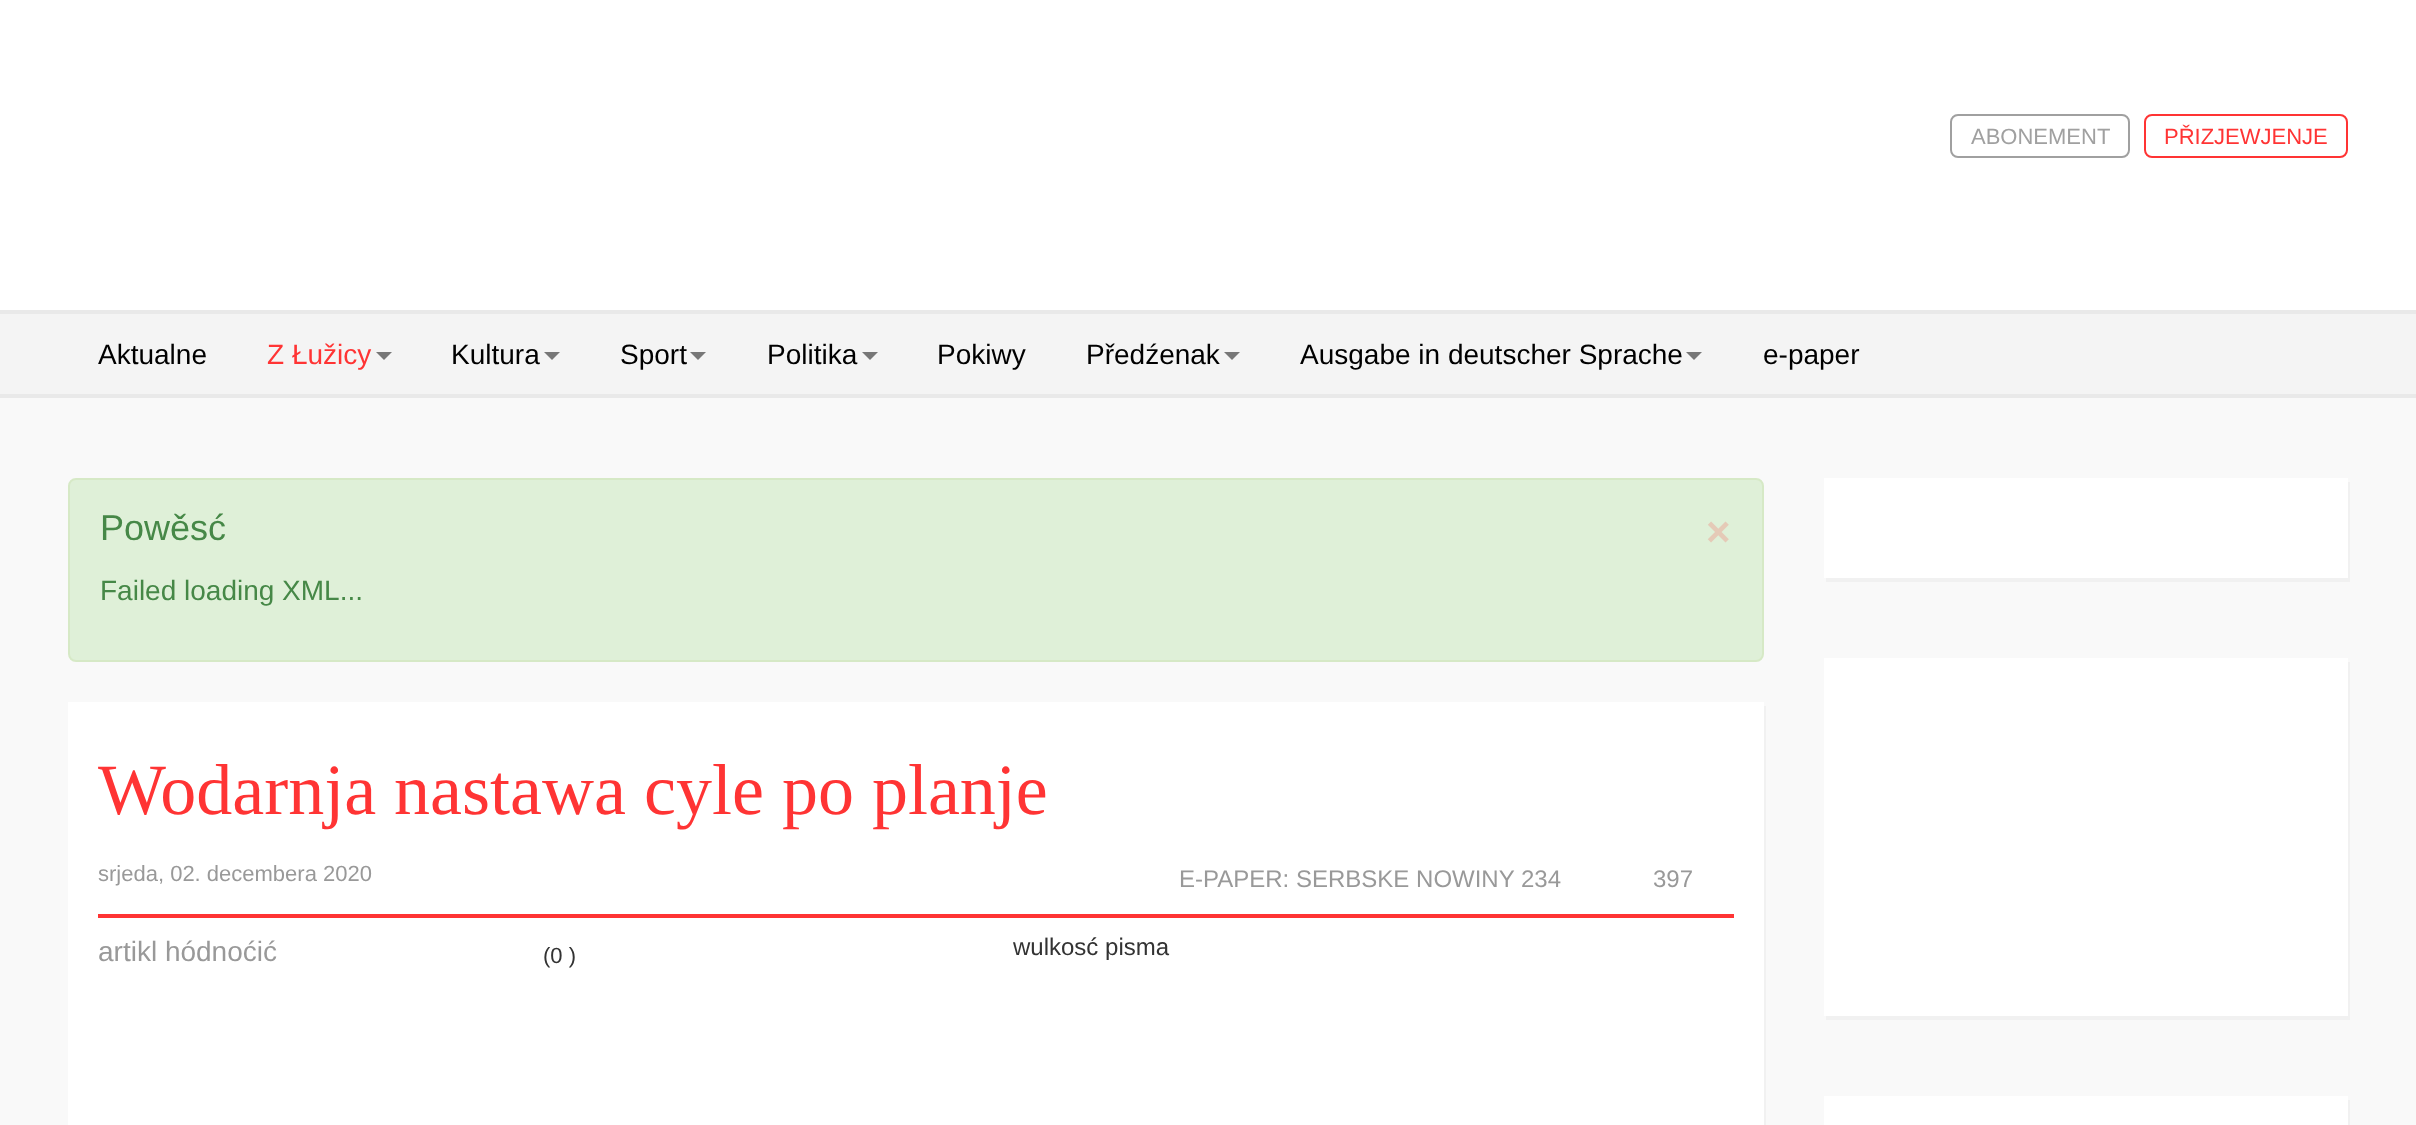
<svg xmlns="http://www.w3.org/2000/svg" width="2416" height="1125" viewBox="0 0 2416 1125">
  <rect width="100%" height="100%" fill="#f9f9f9"/>
  <path d="M0 0h2416v310H0z" fill="#fff"/>
  <rect x="1951" y="115" width="178" height="42" rx="7" fill="none" stroke="#a0a0a0" stroke-width="2"/>
  <rect x="2145" y="115" width="202" height="42" rx="7" fill="none" stroke="#ff3434" stroke-width="2"/>
  <path d="M0 314h2416v80H0z" fill="#f4f4f4"/>
  <path d="M0 310h2416v4H0z" fill="#e9e9e9"/>
  <path d="M0 394h2416v4H0z" fill="#e9e9e9"/>
  <path d="M376 352H392L384 360Z" fill="#777"/>
  <path d="M544 352H560L552 360Z" fill="#777"/>
  <path d="M690 352H706L698 360Z" fill="#777"/>
  <path d="M862 352H878L870 360Z" fill="#777"/>
  <path d="M1224 352H1240L1232 360Z" fill="#777"/>
  <path d="M1686 352H1702L1694 360Z" fill="#777"/>
  <rect x="69" y="479" width="1694" height="182" rx="7" fill="#dff0d8" stroke="#d6e9c6" stroke-width="2"/>
  <path d="M70 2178V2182H1766V706H1764V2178Z" fill="#f1f1f1"/>
  <path d="M68 702h1696v423H68z" fill="#fff"/>
  <path d="M98 914h1636v4H98z" fill="#ff3434"/>
  <path d="M1826 578V582H2350V482H2348V578Z" fill="#f1f1f1"/>
  <path d="M1824 478h524v100H1824z" fill="#fff"/>
  <path d="M1826 1016V1020H2350V662H2348V1016Z" fill="#f1f1f1"/>
  <path d="M1824 658h524v358H1824z" fill="#fff"/>
  <path d="M1826 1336V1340H2350V1100H2348V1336Z" fill="#f1f1f1"/>
  <path d="M1824 1096h524v29H1824z" fill="#fff"/>
  <text x="1971" y="144" font-family="Liberation Sans" font-size="22" fill="#a0a0a0">ABONEMENT</text>
  <text x="2164" y="144" font-family="Liberation Sans" font-size="22" fill="#ff3434">PŘIZJEWJENJE</text>
  <text x="98" y="364" font-family="Liberation Sans" font-size="28" fill="#000">Aktualne</text>
  <text x="267" y="364" font-family="Liberation Sans" font-size="28" fill="#ff3434">Z Łužicy</text>
  <g font-family="Liberation Sans" font-size="28" fill="#000">
    <text x="451" y="364">Kultura</text>
    <text x="620" y="364">Sport</text>
    <text x="767" y="364">Politika</text>
    <text x="937" y="364">Pokiwy</text>
    <text x="1086" y="364">Předźenak</text>
    <text x="1300" y="364">Ausgabe in deutscher Sprache</text>
    <text x="1763" y="364">e-paper</text>
  </g>
  <text x="100" y="540" font-family="Liberation Sans" font-size="36" fill="#468847">Powěsć</text>
  <text x="1706" y="546" font-family="Liberation Sans" font-size="42" font-weight="bold" fill="#e5cab7">×</text>
  <text x="100" y="600" font-family="Liberation Sans" font-size="28" fill="#468847">Failed loading XML...</text>
  <text x="98" y="814" font-family="Liberation Serif" font-size="72" fill="#ff3434">Wodarnja nastawa cyle po planje</text>
  <text x="98" y="881" font-family="Liberation Sans" font-size="22" fill="#999">srjeda, 02. decembera 2020</text>
  <g font-family="Liberation Sans" font-size="24" fill="#999">
    <text x="1179" y="887">E-PAPER:</text>
    <text x="1296" y="887">SERBSKE NOWINY 234</text>
    <text x="1653" y="887">397</text>
  </g>
  <text x="98" y="961" font-family="Liberation Sans" font-size="28" fill="#999">artikl hódnoćić</text>
  <text x="543" y="963" font-family="Liberation Sans" font-size="22" fill="#333">(0 )</text>
  <text x="1013" y="955" font-family="Liberation Sans" font-size="24" fill="#333">wulkosć pisma</text>
</svg>
